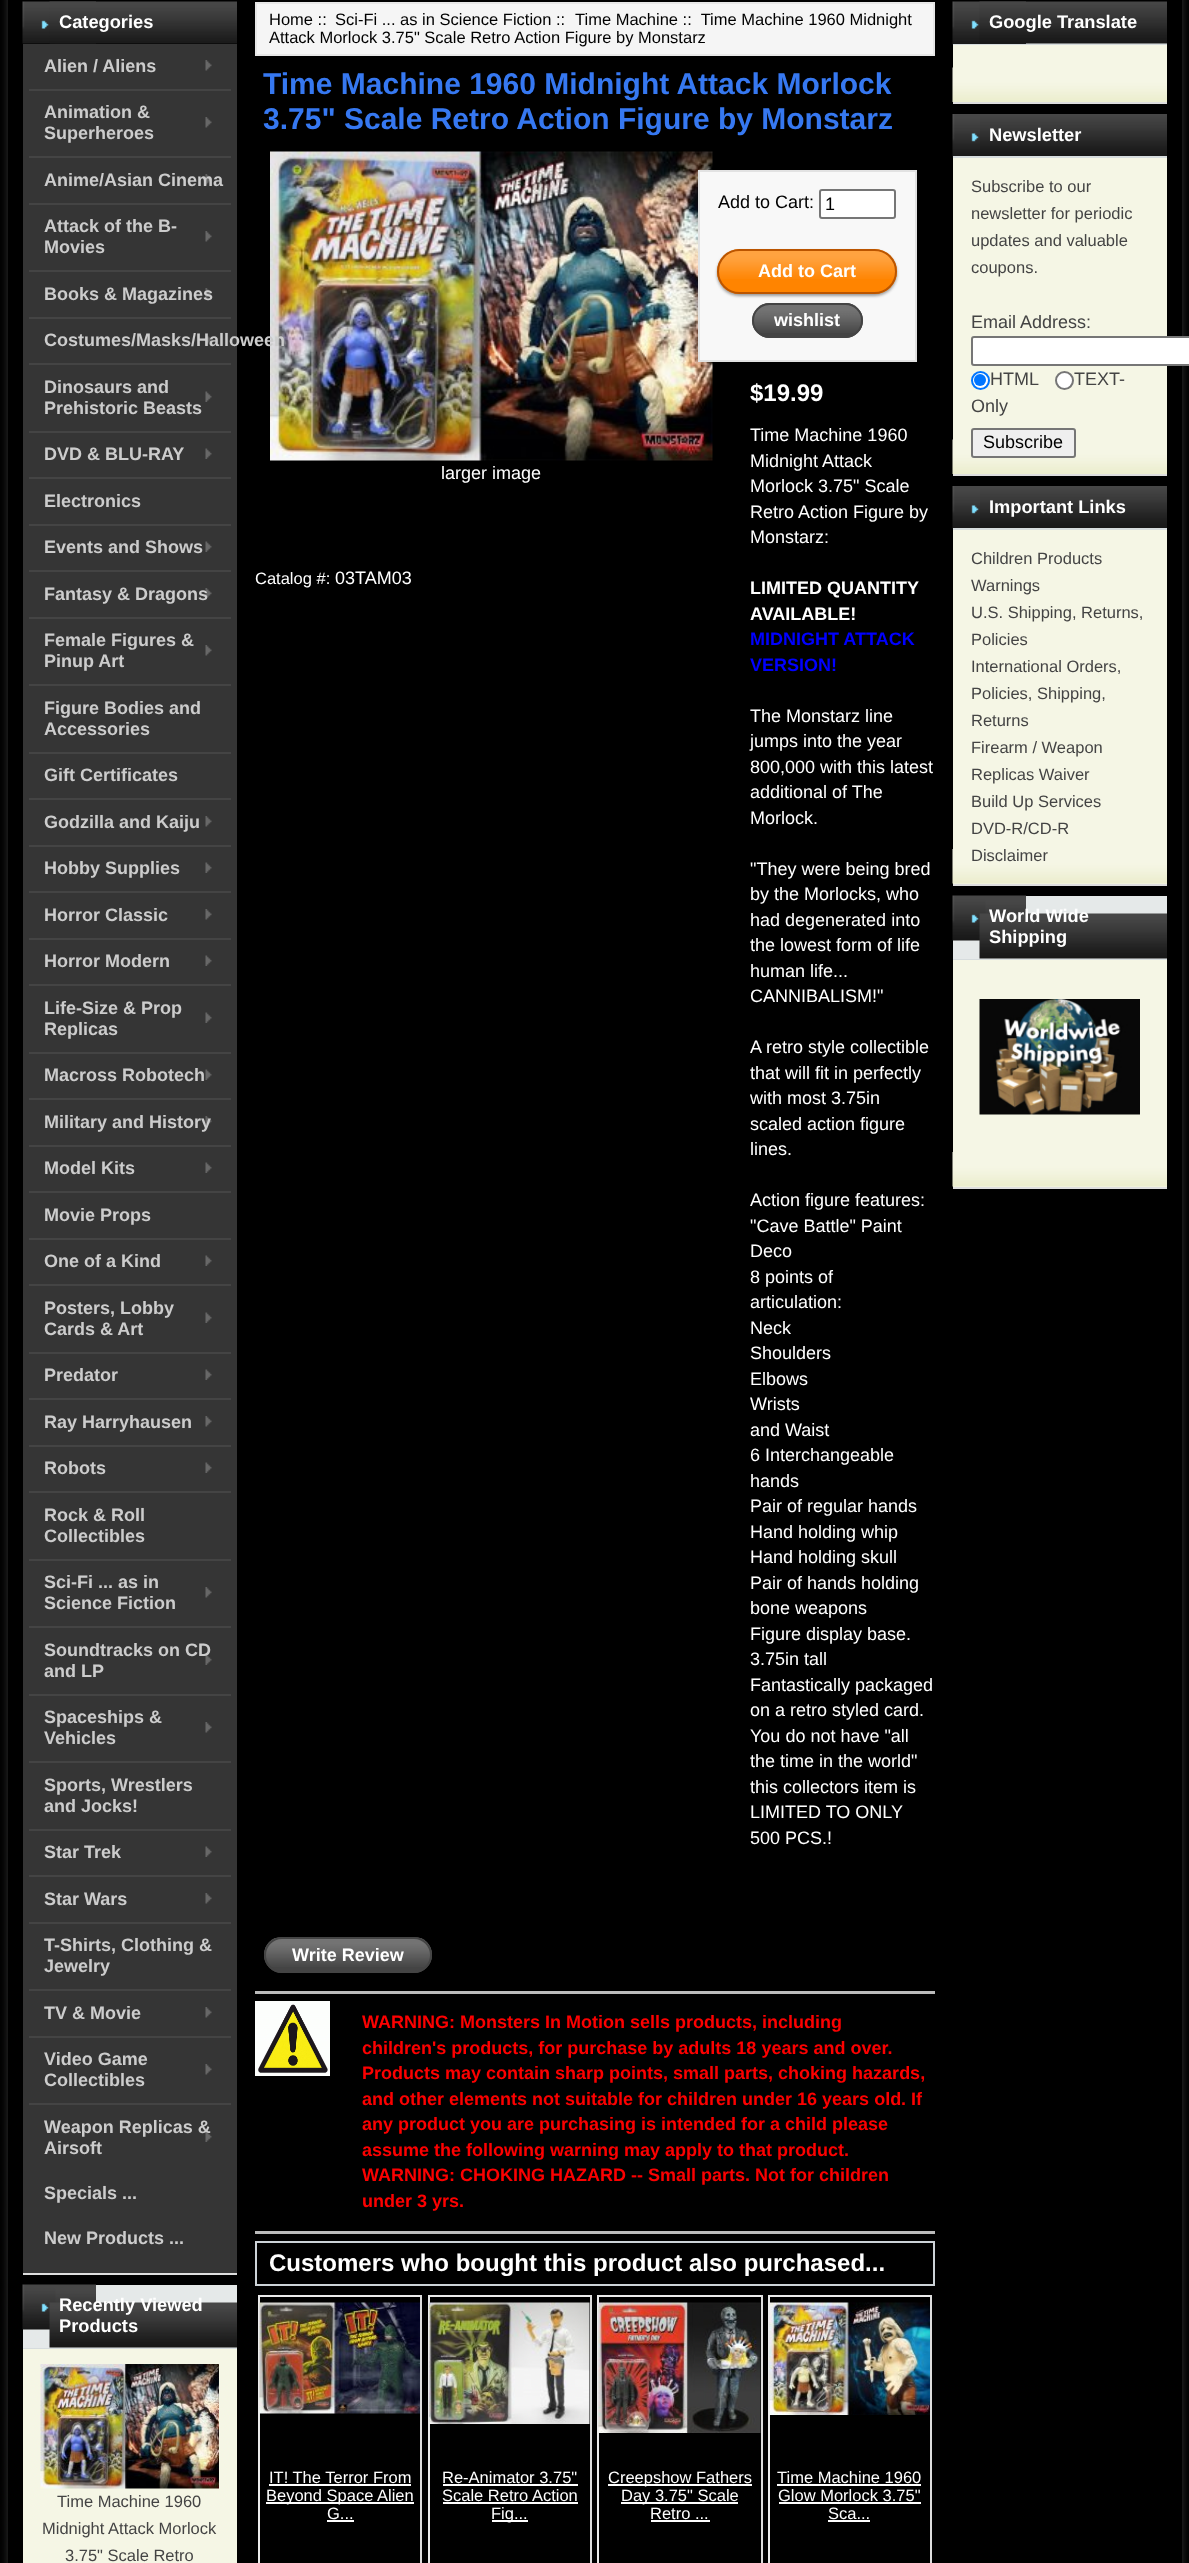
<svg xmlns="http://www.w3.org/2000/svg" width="1189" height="2563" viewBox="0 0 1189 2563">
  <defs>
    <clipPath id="clip1"><path d="M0 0H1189V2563H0ZM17-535H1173C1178-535 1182-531 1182-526V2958H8V-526C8-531 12-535 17-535Z" clip-rule="evenodd"/></clipPath>
  </defs>
  <rect width="100%" height="100%" fill="#000"/>
  <g clip-path="url(#clip1)">
    <rect x="8" y="-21" width="1174" height="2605" rx="9" fill="#333" filter="blur(4px)"/>
  </g>
  <image x="22" y="1" width="74" height="43" href="img/1.png"/>
  <image x="49" y="1" width="188" height="43" href="img/2.png"/>
  <path d="M23 44h214v2229H23z" fill="#353535"/>
  <path d="M23 2273h214v2H23z" fill="#dedede"/>
  <image x="205" y="60" width="7" height="11" href="img/3.png"/>
  <path d="M29 89h202v2H29z" fill="#444"/>
  <image x="205" y="117" width="7" height="11" href="img/3.png"/>
  <path d="M29 156h202v2H29z" fill="#444"/>
  <image x="205" y="174" width="7" height="11" href="img/3.png"/>
  <path d="M29 203h202v2H29z" fill="#444"/>
  <image x="205" y="231" width="7" height="11" href="img/3.png"/>
  <path d="M29 270h202v2H29z" fill="#444"/>
  <image x="205" y="288" width="7" height="11" href="img/3.png"/>
  <path d="M29 317h202v2H29z" fill="#444"/>
  <image x="205" y="334" width="7" height="11" href="img/4.png"/>
  <path d="M29 363h202v2H29z" fill="#444"/>
  <image x="205" y="391" width="7" height="11" href="img/4.png"/>
  <path d="M29 431h202v2H29z" fill="#444"/>
  <image x="205" y="448" width="7" height="11" href="img/4.png"/>
  <path d="M29 477h202v2H29z" fill="#444"/>
  <path d="M29 524h202v2H29z" fill="#444"/>
  <image x="205" y="541" width="7" height="11" href="img/4.png"/>
  <path d="M29 570h202v2H29z" fill="#444"/>
  <image x="205" y="588" width="7" height="11" href="img/3.png"/>
  <path d="M29 617h202v2H29z" fill="#444"/>
  <image x="205" y="645" width="7" height="11" href="img/3.png"/>
  <path d="M29 684h202v2H29z" fill="#444"/>
  <path d="M29 752h202v2H29z" fill="#444"/>
  <path d="M29 798h202v2H29z" fill="#444"/>
  <image x="205" y="816" width="7" height="11" href="img/3.png"/>
  <path d="M29 845h202v2H29z" fill="#444"/>
  <image x="205" y="862" width="7" height="11" href="img/4.png"/>
  <path d="M29 891h202v2H29z" fill="#444"/>
  <image x="205" y="909" width="7" height="11" href="img/3.png"/>
  <path d="M29 938h202v2H29z" fill="#444"/>
  <image x="205" y="955" width="7" height="11" href="img/4.png"/>
  <path d="M29 984h202v2H29z" fill="#444"/>
  <image x="205" y="1012" width="7" height="11" href="img/4.png"/>
  <path d="M29 1052h202v2H29z" fill="#444"/>
  <image x="205" y="1069" width="7" height="11" href="img/4.png"/>
  <path d="M29 1098h202v2H29z" fill="#444"/>
  <image x="205" y="1116" width="7" height="11" href="img/3.png"/>
  <path d="M29 1145h202v2H29z" fill="#444"/>
  <image x="205" y="1162" width="7" height="11" href="img/4.png"/>
  <path d="M29 1191h202v2H29z" fill="#444"/>
  <path d="M29 1238h202v2H29z" fill="#444"/>
  <image x="205" y="1255" width="7" height="11" href="img/4.png"/>
  <path d="M29 1284h202v2H29z" fill="#444"/>
  <image x="205" y="1312" width="7" height="11" href="img/4.png"/>
  <path d="M29 1352h202v2H29z" fill="#444"/>
  <image x="205" y="1369" width="7" height="11" href="img/4.png"/>
  <path d="M29 1398h202v2H29z" fill="#444"/>
  <image x="205" y="1416" width="7" height="11" href="img/3.png"/>
  <path d="M29 1445h202v2H29z" fill="#444"/>
  <image x="205" y="1462" width="7" height="11" href="img/4.png"/>
  <path d="M29 1491h202v2H29z" fill="#444"/>
  <path d="M29 1559h202v2H29z" fill="#444"/>
  <image x="205" y="1587" width="7" height="11" href="img/3.png"/>
  <path d="M29 1626h202v2H29z" fill="#444"/>
  <image x="205" y="1654" width="7" height="11" href="img/4.png"/>
  <path d="M29 1694h202v2H29z" fill="#444"/>
  <image x="205" y="1722" width="7" height="11" href="img/3.png"/>
  <path d="M29 1761h202v2H29z" fill="#444"/>
  <path d="M29 1829h202v2H29z" fill="#444"/>
  <image x="205" y="1846" width="7" height="11" href="img/4.png"/>
  <path d="M29 1875h202v2H29z" fill="#444"/>
  <image x="205" y="1893" width="7" height="11" href="img/3.png"/>
  <path d="M29 1922h202v2H29z" fill="#444"/>
  <path d="M29 1989h202v2H29z" fill="#444"/>
  <image x="205" y="2007" width="7" height="11" href="img/3.png"/>
  <path d="M29 2036h202v2H29z" fill="#444"/>
  <image x="205" y="2064" width="7" height="11" href="img/3.png"/>
  <path d="M29 2103h202v2H29z" fill="#444"/>
  <image x="205" y="2131" width="7" height="11" href="img/4.png"/>
  <path d="M23 2285h214v63H23z" fill="#e5e9e9"/>
  <image x="22" y="2284" width="74" height="46" href="img/5.png"/>
  <path d="M23 2348h214v1H23z" fill="#d6dcdd"/>
  <image x="49" y="2302" width="188" height="46" href="img/6.png"/>
  <path d="M23 2349h214v214H23z" fill="#f5f6e5"/>
  <image x="40" y="2364" width="179" height="125" href="img/7.png"/>
  <path d="M256 3h678v52H256z" fill="#f5f5f5" stroke="#e7e7e7" stroke-width="2"/>
  <image x="270" y="151" width="443" height="310" href="img/8.png"/>
  <path d="M699 171h217v190H699z" fill="#f8f8f8" stroke="#e2e2e2" stroke-width="2"/>
  <rect x="820" y="190" width="75" height="28" rx="2" fill="#fff" stroke="#767676" stroke-width="2"/>
  <rect x="717" y="251" width="180" height="45" rx="22.5" fill="#999" filter="blur(1.5px)"/>
  <rect x="717" y="249" width="180" height="45" rx="22.5" fill="#ff8400"/>
  <image x="717" y="250" width="180" height="29" href="img/9.png"/>
  <rect x="718" y="250" width="178" height="43" rx="21.5" fill="none" stroke="#b50" stroke-width="2"/>
  <rect x="752" y="303" width="111" height="35" rx="17.5" fill="#444"/>
  <image x="752" y="304" width="111" height="29" href="img/10.png"/>
  <rect x="753" y="304" width="109" height="33" rx="16.5" fill="none" stroke="#444" stroke-width="2"/>
  <rect x="264" y="1937" width="168" height="36" rx="18" fill="#444"/>
  <image x="264" y="1938" width="168" height="29" href="img/11.png"/>
  <rect x="265" y="1938" width="166" height="34" rx="17" fill="none" stroke="#444" stroke-width="2"/>
  <path d="M255 1991h680v3H255z" fill="#bbb"/>
  <image x="255" y="2001" width="75" height="75" href="img/12.png"/>
  <path d="M255 2231h680v3H255z" fill="#bbb"/>
  <path d="M256 2242h678v43H256z" fill="none" stroke="#cdd3d7" stroke-width="2"/>
  <path d="M258 2295h164v2H258z" fill="#ebebeb"/>
  <path d="M420 2295h2v268H420z" fill="#ddd"/>
  <path d="M258 2295h2v268H258z" fill="#ebebeb"/>
  <image x="259" y="2302" width="161" height="112" href="img/13.png"/>
  <path d="M269 2484h142v2H269z" fill="#fff"/>
  <path d="M266 2502h148v2H266z" fill="#fff"/>
  <path d="M327 2520h27v2H327z" fill="#fff"/>
  <path d="M428 2295h163v2H428z" fill="#ebebeb"/>
  <path d="M590 2295h2v268H590z" fill="#ddd"/>
  <path d="M428 2295h2v268H428z" fill="#ebebeb"/>
  <image x="429" y="2302" width="161" height="122" href="img/14.png"/>
  <path d="M443 2484h135v2H443z" fill="#fff"/>
  <path d="M443 2502h135v2H443z" fill="#fff"/>
  <path d="M492 2520h36v2H492z" fill="#fff"/>
  <path d="M597 2295h165v2H597z" fill="#ebebeb"/>
  <path d="M761 2295h2v268H761z" fill="#ddd"/>
  <path d="M597 2295h2v268H597z" fill="#ebebeb"/>
  <image x="598" y="2302" width="163" height="131" href="img/15.png"/>
  <path d="M608 2484h144v2H608z" fill="#fff"/>
  <path d="M621 2502h117v2H621z" fill="#fff"/>
  <path d="M651 2520h59v2H651z" fill="#fff"/>
  <path d="M768 2295h164v2H768z" fill="#ebebeb"/>
  <path d="M930 2295h2v268H930z" fill="#ddd"/>
  <path d="M768 2295h2v268H768z" fill="#ebebeb"/>
  <image x="769" y="2302" width="161" height="113" href="img/16.png"/>
  <path d="M777 2484h144v2H777z" fill="#fff"/>
  <path d="M779 2502h142v2H779z" fill="#fff"/>
  <path d="M828 2520h42v2H828z" fill="#fff"/>
  <path d="M1026 43h141v1H1026z" fill="#e5e9e9"/>
  <image x="952" y="1" width="74" height="44" href="img/17.png"/>
  <path d="M953 44h214v1H953z" fill="#d6dcdd"/>
  <image x="979" y="1" width="188" height="43" href="img/18.png"/>
  <path d="M953 45h214v23H953z" fill="#f5f6e5"/>
  <image x="952" y="67" width="215" height="35" href="img/19.png"/>
  <path d="M953 102h214v2H953z" fill="#dedede"/>
  <image x="952" y="114" width="28" height="44" href="img/20.png"/>
  <path d="M953 156h214v2H953z" fill="#d6dcdd"/>
  <image x="980" y="114" width="187" height="42" href="img/21.png"/>
  <path d="M953 158h214v282H953z" fill="#f5f6e5"/>
  <image x="952" y="439" width="215" height="35" href="img/19.png"/>
  <path d="M953 474h214v2H953z" fill="#dedede"/>
  <rect x="972" y="337" width="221" height="28" rx="2" fill="#fff" stroke="#767676" stroke-width="2"/>
  <circle cx="980.5" cy="380.5" r="8.5" fill="#fff" stroke="#0075ff" stroke-width="2"/>
  <circle cx="980" cy="380" r="6" fill="#0075ff"/>
  <circle cx="1064.5" cy="380.5" r="8.5" fill="#fff" stroke="#767676" stroke-width="2"/>
  <rect x="972" y="429" width="103" height="28" rx="2" fill="#efefef" stroke="#767676" stroke-width="2"/>
  <image x="952" y="486" width="28" height="44" href="img/20.png"/>
  <path d="M953 528h214v2H953z" fill="#d6dcdd"/>
  <image x="980" y="486" width="187" height="42" href="img/21.png"/>
  <path d="M953 530h214v354H953z" fill="#f5f6e5"/>
  <image x="952" y="849" width="215" height="35" href="img/22.png"/>
  <path d="M953 884h214v2H953z" fill="#dedede"/>
  <path d="M953 896h214v63H953z" fill="#e5e9e9"/>
  <image x="952" y="895" width="74" height="46" href="img/5.png"/>
  <path d="M953 959h214v1H953z" fill="#d6dcdd"/>
  <image x="979" y="913" width="188" height="46" href="img/6.png"/>
  <path d="M953 960h214v227H953z" fill="#f5f6e5"/>
  <image x="952" y="1152" width="215" height="35" href="img/22.png"/>
  <path d="M953 1187h214v2H953z" fill="#dedede"/>
  <image x="979" y="999" width="161" height="116" href="img/23.png"/>
  <text x="59" y="28" font-family="Liberation Sans" font-size="18.25" font-weight="bold" fill="#fff">Categories</text>
  <g font-family="Liberation Sans" font-size="18" font-weight="bold" fill="#ccc">
    <text x="44" y="72">Alien / Aliens</text>
    <text x="44" y="118">Animation &amp;</text>
    <text x="44" y="139">Superheroes</text>
    <text x="44" y="186">Anime/Asian Cinema</text>
    <text x="44" y="232">Attack of the B-</text>
    <text x="44" y="253">Movies</text>
    <text x="44" y="300">Books &amp; Magazines</text>
    <text x="44" y="346">Costumes/Masks/Halloween</text>
    <text x="44" y="393">Dinosaurs and</text>
    <text x="44" y="414">Prehistoric Beasts</text>
    <text x="44" y="460">DVD &amp; BLU-RAY</text>
    <text x="44" y="507">Electronics</text>
    <text x="44" y="553">Events and Shows</text>
    <text x="44" y="600">Fantasy &amp; Dragons</text>
    <text x="44" y="646">Female Figures &amp;</text>
    <text x="44" y="667">Pinup Art</text>
    <text x="44" y="714">Figure Bodies and</text>
    <text x="44" y="735">Accessories</text>
    <text x="44" y="781">Gift Certificates</text>
    <text x="44" y="828">Godzilla and Kaiju</text>
    <text x="44" y="874">Hobby Supplies</text>
    <text x="44" y="921">Horror Classic</text>
    <text x="44" y="967">Horror Modern</text>
    <text x="44" y="1014">Life-Size &amp; Prop</text>
    <text x="44" y="1035">Replicas</text>
    <text x="44" y="1081">Macross Robotech</text>
    <text x="44" y="1128">Military and History</text>
    <text x="44" y="1174">Model Kits</text>
    <text x="44" y="1221">Movie Props</text>
    <text x="44" y="1267">One of a Kind</text>
    <text x="44" y="1314">Posters, Lobby</text>
    <text x="44" y="1335">Cards &amp; Art</text>
    <text x="44" y="1381">Predator</text>
    <text x="44" y="1428">Ray Harryhausen</text>
    <text x="44" y="1474">Robots</text>
    <text x="44" y="1521">Rock &amp; Roll</text>
    <text x="44" y="1542">Collectibles</text>
    <text x="44" y="1588">Sci-Fi ... as in</text>
    <text x="44" y="1609">Science Fiction</text>
    <text x="44" y="1656">Soundtracks on CD</text>
    <text x="44" y="1677">and LP</text>
    <text x="44" y="1723">Spaceships &amp;</text>
    <text x="44" y="1744">Vehicles</text>
    <text x="44" y="1791">Sports, Wrestlers</text>
    <text x="44" y="1812">and Jocks!</text>
    <text x="44" y="1858">Star Trek</text>
    <text x="44" y="1905">Star Wars</text>
    <text x="44" y="1951">T-Shirts, Clothing &amp;</text>
    <text x="44" y="1972">Jewelry</text>
    <text x="44" y="2019">TV &amp; Movie</text>
    <text x="44" y="2065">Video Game</text>
    <text x="44" y="2086">Collectibles</text>
    <text x="44" y="2133">Weapon Replicas &amp;</text>
    <text x="44" y="2154">Airsoft</text>
    <text x="44" y="2199">Specials ...</text>
    <text x="44" y="2244">New Products ...</text>
  </g>
  <g font-family="Liberation Sans" font-size="18.25" font-weight="bold" fill="#fff">
    <text x="59" y="2311">Recently Viewed</text>
    <text x="59" y="2332">Products</text>
  </g>
  <g font-family="Liberation Sans" font-size="16.5" fill="#444">
    <text x="57" y="2507">Time Machine 1960</text>
    <text x="42" y="2534">Midnight Attack Morlock</text>
    <text x="65" y="2561">3.75" Scale Retro</text>
  </g>
  <g font-family="Liberation Sans" font-size="16.5" fill="#000">
    <text x="269" y="25">Home ::</text>
    <text x="335" y="25">Sci-Fi ... as in Science Fiction ::</text>
    <text x="575" y="25" xml:space="preserve">Time Machine ::  Time Machine 1960 Midnight</text>
    <text x="269" y="43">Attack Morlock 3.75" Scale Retro Action Figure by Monstarz</text>
  </g>
  <g font-family="Liberation Sans" font-size="30" font-weight="bold" fill="#3678f1">
    <text x="263" y="94">Time Machine 1960 Midnight Attack Morlock</text>
    <text x="263" y="129">3.75" Scale Retro Action Figure by Monstarz</text>
  </g>
  <text x="441" y="479" font-family="Liberation Sans" font-size="18" fill="#fff">larger image</text>
  <text x="255" y="584" font-family="Liberation Sans" font-size="16.5" fill="#fff">Catalog #:</text>
  <text x="335" y="584" font-family="Liberation Sans" font-size="18" fill="#fff">03TAM03</text>
  <g font-family="Liberation Sans" font-size="18" fill="#000">
    <text x="718" y="208">Add to Cart:</text>
    <text x="825" y="210">1</text>
  </g>
  <g font-family="Liberation Sans" font-size="18" font-weight="bold" fill="#fff">
    <text x="758" y="277">Add to Cart</text>
    <text x="774" y="326">wishlist</text>
  </g>
  <text x="750" y="401" font-family="Liberation Sans" font-size="24" font-weight="bold" fill="#fff">$19.99</text>
  <g font-family="Liberation Sans" font-size="18" fill="#fff">
    <text x="750" y="441">Time Machine 1960</text>
    <text x="750" y="467">Midnight Attack</text>
    <text x="750" y="492">Morlock 3.75" Scale</text>
    <text x="750" y="518">Retro Action Figure by</text>
    <text x="750" y="543">Monstarz:</text>
  </g>
  <g font-family="Liberation Sans" font-size="18" font-weight="bold" fill="#fff">
    <text x="750" y="594">LIMITED QUANTITY</text>
    <text x="750" y="620">AVAILABLE!</text>
  </g>
  <g font-family="Liberation Sans" font-size="18" font-weight="bold" fill="#00f">
    <text x="750" y="645">MIDNIGHT ATTACK</text>
    <text x="750" y="671">VERSION!</text>
  </g>
  <g font-family="Liberation Sans" font-size="18" fill="#fff">
    <text x="750" y="722">The Monstarz line</text>
    <text x="750" y="747">jumps into the year</text>
    <text x="750" y="773">800,000 with this latest</text>
    <text x="750" y="798">additional of The</text>
    <text x="750" y="824">Morlock.</text>
    <text x="750" y="875">"They were being bred</text>
    <text x="750" y="900">by the Morlocks, who</text>
    <text x="750" y="926">had degenerated into</text>
    <text x="750" y="951">the lowest form of life</text>
    <text x="750" y="977">human life...</text>
    <text x="750" y="1002">CANNIBALISM!"</text>
    <text x="750" y="1053">A retro style collectible</text>
    <text x="750" y="1079">that will fit in perfectly</text>
    <text x="750" y="1104">with most 3.75in</text>
    <text x="750" y="1130">scaled action figure</text>
    <text x="750" y="1155">lines.</text>
    <text x="750" y="1206">Action figure features:</text>
    <text x="750" y="1232">"Cave Battle" Paint</text>
    <text x="750" y="1257">Deco</text>
    <text x="750" y="1283">8 points of</text>
    <text x="750" y="1308">articulation:</text>
    <text x="750" y="1334">Neck</text>
    <text x="750" y="1359">Shoulders</text>
    <text x="750" y="1385">Elbows</text>
    <text x="750" y="1410">Wrists</text>
    <text x="750" y="1436">and Waist</text>
    <text x="750" y="1461">6 Interchangeable</text>
    <text x="750" y="1487">hands</text>
    <text x="750" y="1512">Pair of regular hands</text>
    <text x="750" y="1538">Hand holding whip</text>
    <text x="750" y="1563">Hand holding skull</text>
    <text x="750" y="1589">Pair of hands holding</text>
    <text x="750" y="1614">bone weapons</text>
    <text x="750" y="1640">Figure display base.</text>
    <text x="750" y="1665">3.75in tall</text>
    <text x="750" y="1691">Fantastically packaged</text>
    <text x="750" y="1716">on a retro styled card.</text>
    <text x="750" y="1742">You do not have "all</text>
    <text x="750" y="1767">the time in the world"</text>
    <text x="750" y="1793">this collectors item is</text>
    <text x="750" y="1818">LIMITED TO ONLY</text>
    <text x="750" y="1844">500 PCS.!</text>
  </g>
  <text x="292" y="1961" font-family="Liberation Sans" font-size="18" font-weight="bold" fill="#fff">Write Review</text>
  <g font-family="Liberation Sans" font-size="18" font-weight="bold" fill="#fc0000">
    <text x="362" y="2028">WARNING: Monsters In Motion sells products, including</text>
    <text x="362" y="2054">children's products, for purchase by adults 18 years and over.</text>
    <text x="362" y="2079">Products may contain sharp points, small parts, choking hazards,</text>
    <text x="362" y="2105">and other elements not suitable for children under 16 years old. If</text>
    <text x="362" y="2130">any product you are purchasing is intended for a child please</text>
    <text x="362" y="2156">assume the following warning may apply to that product.</text>
    <text x="362" y="2181">WARNING: CHOKING HAZARD -- Small parts. Not for children</text>
    <text x="362" y="2207">under 3 yrs.</text>
  </g>
  <text x="269" y="2271" font-family="Liberation Sans" font-size="24" font-weight="bold" fill="#fff">Customers who bought this product also purchased...</text>
  <g font-family="Liberation Sans" font-size="16.5" fill="#fff">
    <text x="269" y="2483">IT! The Terror From</text>
    <text x="266" y="2501">Beyond Space Alien</text>
    <text x="327" y="2519">G...</text>
    <text x="442" y="2483">Re-Animator 3.75"</text>
    <text x="442" y="2501">Scale Retro Action</text>
    <text x="491" y="2519">Fig...</text>
    <text x="608" y="2483">Creepshow Fathers</text>
    <text x="621" y="2501">Day 3.75" Scale</text>
    <text x="650" y="2519">Retro ...</text>
    <text x="777" y="2483">Time Machine 1960</text>
    <text x="778" y="2501">Glow Morlock 3.75"</text>
    <text x="828" y="2519">Sca...</text>
  </g>
  <g font-family="Liberation Sans" font-size="18.25" font-weight="bold" fill="#fff">
    <text x="989" y="28">Google Translate</text>
    <text x="989" y="141">Newsletter</text>
  </g>
  <g font-family="Liberation Sans" font-size="16.5" fill="#444">
    <text x="971" y="192">Subscribe to our</text>
    <text x="971" y="219">newsletter for periodic</text>
    <text x="971" y="246">updates and valuable</text>
    <text x="971" y="273">coupons.</text>
  </g>
  <g font-family="Liberation Sans" font-size="18" fill="#444">
    <text x="971" y="328">Email Address:</text>
    <text x="990" y="385">HTML</text>
    <text x="1074" y="385">TEXT-</text>
    <text x="971" y="412">Only</text>
  </g>
  <text x="983" y="448" font-family="Liberation Sans" font-size="18" fill="#000">Subscribe</text>
  <text x="989" y="513" font-family="Liberation Sans" font-size="18.25" font-weight="bold" fill="#fff">Important Links</text>
  <g font-family="Liberation Sans" font-size="16.5" fill="#444">
    <text x="971" y="564">Children Products</text>
    <text x="971" y="591">Warnings</text>
    <text x="971" y="618">U.S. Shipping, Returns,</text>
    <text x="971" y="645">Policies</text>
    <text x="971" y="672">International Orders,</text>
    <text x="971" y="699">Policies, Shipping,</text>
    <text x="971" y="726">Returns</text>
    <text x="971" y="753">Firearm / Weapon</text>
    <text x="971" y="780">Replicas Waiver</text>
    <text x="971" y="807">Build Up Services</text>
    <text x="971" y="834">DVD-R/CD-R</text>
    <text x="971" y="861">Disclaimer</text>
  </g>
  <g font-family="Liberation Sans" font-size="18.25" font-weight="bold" fill="#fff">
    <text x="989" y="922">World Wide</text>
    <text x="989" y="943">Shipping</text>
  </g>
</svg>
